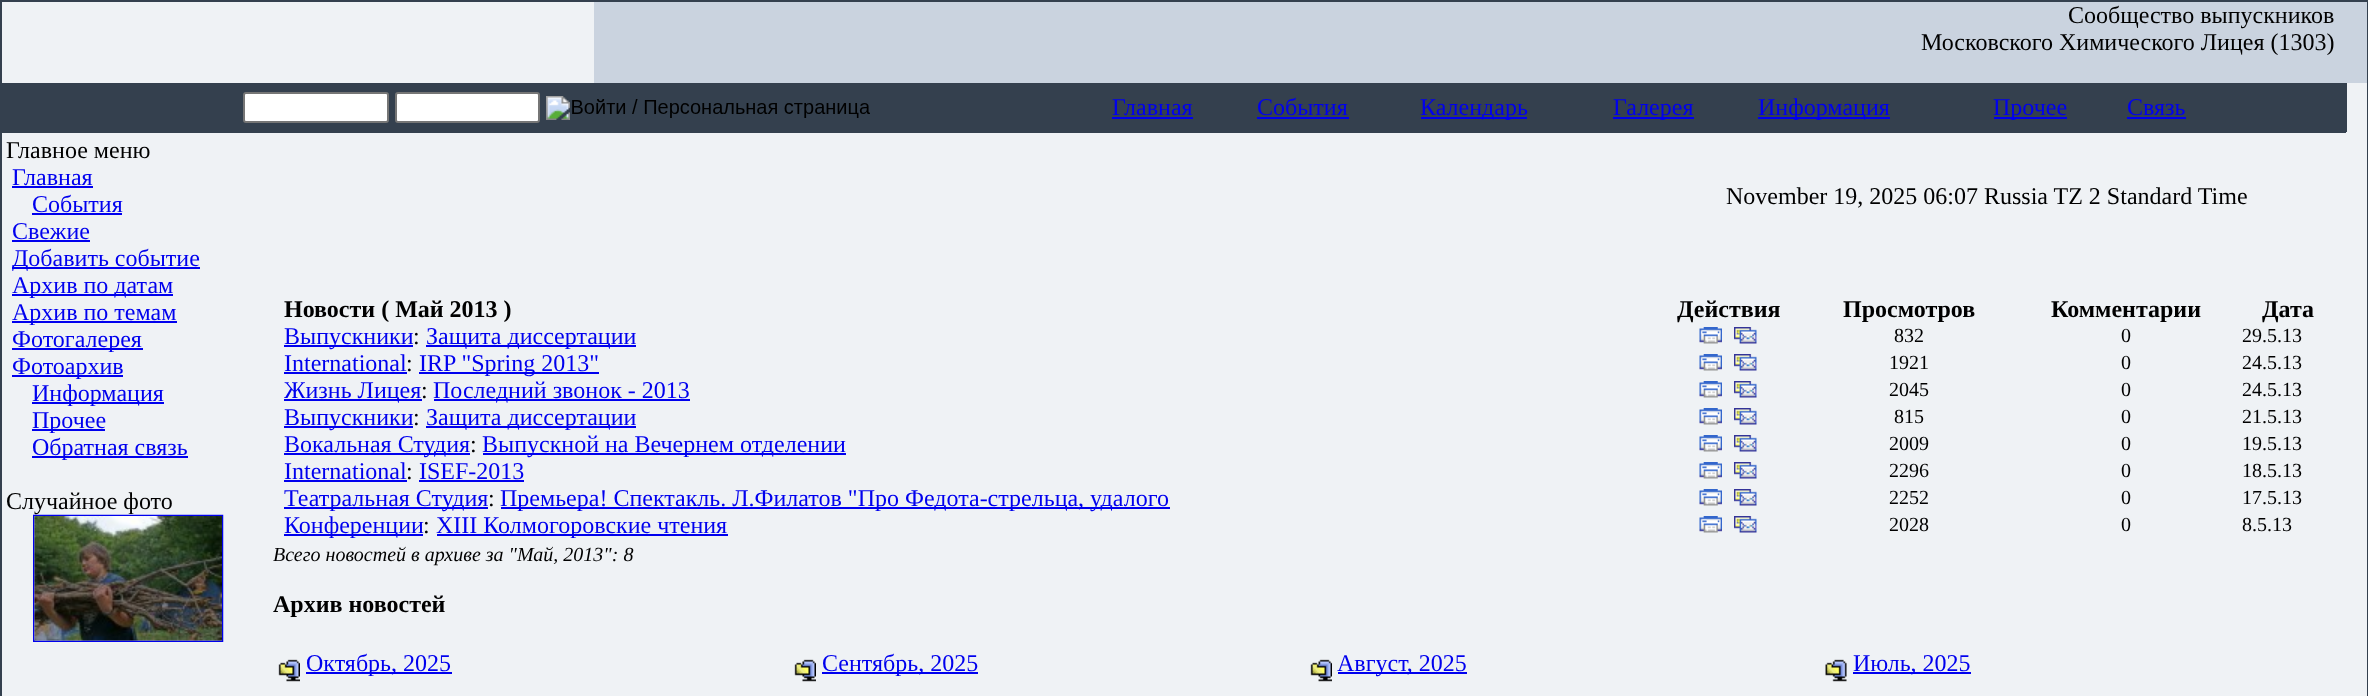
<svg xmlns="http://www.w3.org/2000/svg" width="2368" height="696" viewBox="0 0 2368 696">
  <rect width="100%" height="100%" fill="#34404e"/>
  <path d="M2 2h2365v694H2z" fill="#eff2f5"/>
  <path d="M594 2h1773v81H594z" fill="#cad3df"/>
  <path d="M2 83h2343v48H2z" fill="#34404e"/>
  <path d="M2345 83h2v49H2345z" fill="#34404e"/>
  <path d="M2 131h2344v2H2z" fill="#34404e"/>
  <rect x="244" y="93" width="144" height="29" rx="2" fill="#fff" stroke="#767676" stroke-width="2"/>
  <rect x="396" y="93" width="143" height="29" rx="2" fill="#fff" stroke="#767676" stroke-width="2"/>
  <image x="546" y="96" width="324" height="24" href="img/1.png"/>
  <path d="M1112 117h81v2H1112z" fill="#00e"/>
  <path d="M1257 117h92v2H1257z" fill="#00e"/>
  <path d="M1421 117h106v2H1421z" fill="#00e"/>
  <path d="M1613 117h81v2H1613z" fill="#00e"/>
  <path d="M1758 117h132v2H1758z" fill="#00e"/>
  <path d="M1994 117h73v2H1994z" fill="#00e"/>
  <path d="M2127 117h59v2H2127z" fill="#00e"/>
  <path d="M12 186h81v2H12z" fill="#00e"/>
  <path d="M32 213h90v2H32z" fill="#00e"/>
  <path d="M12 240h78v2H12z" fill="#00e"/>
  <path d="M12 267h188v2H12z" fill="#00e"/>
  <path d="M12 294h161v2H12z" fill="#00e"/>
  <path d="M12 321h165v2H12z" fill="#00e"/>
  <path d="M12 348h131v2H12z" fill="#00e"/>
  <path d="M12 375h111v2H12z" fill="#00e"/>
  <path d="M32 402h132v2H32z" fill="#00e"/>
  <path d="M32 429h73v2H32z" fill="#00e"/>
  <path d="M32 456h156v2H32z" fill="#00e"/>
  <path d="M284 345h129v2H284z" fill="#00e"/>
  <path d="M426 345h210v2H426z" fill="#00e"/>
  <image x="1699" y="327" width="23" height="17" href="img/3.png"/>
  <image x="1734" y="327" width="23" height="17" href="img/4.png"/>
  <path d="M284 372h123v2H284z" fill="#00e"/>
  <path d="M419 372h180v2H419z" fill="#00e"/>
  <image x="1699" y="354" width="23" height="17" href="img/3.png"/>
  <image x="1734" y="354" width="23" height="17" href="img/4.png"/>
  <path d="M284 399h138v2H284z" fill="#00e"/>
  <path d="M434 399h256v2H434z" fill="#00e"/>
  <image x="1699" y="381" width="23" height="17" href="img/3.png"/>
  <image x="1734" y="381" width="23" height="17" href="img/4.png"/>
  <path d="M284 426h129v2H284z" fill="#00e"/>
  <path d="M426 426h210v2H426z" fill="#00e"/>
  <image x="1699" y="408" width="23" height="17" href="img/3.png"/>
  <image x="1734" y="408" width="23" height="17" href="img/4.png"/>
  <path d="M284 453h186v2H284z" fill="#00e"/>
  <path d="M483 453h363v2H483z" fill="#00e"/>
  <image x="1699" y="435" width="23" height="17" href="img/3.png"/>
  <image x="1734" y="435" width="23" height="17" href="img/4.png"/>
  <path d="M284 480h123v2H284z" fill="#00e"/>
  <path d="M419 480h105v2H419z" fill="#00e"/>
  <image x="1699" y="462" width="23" height="17" href="img/3.png"/>
  <image x="1734" y="462" width="23" height="17" href="img/4.png"/>
  <path d="M284 507h204v2H284z" fill="#00e"/>
  <path d="M501 507h669v2H501z" fill="#00e"/>
  <image x="1699" y="489" width="23" height="17" href="img/3.png"/>
  <image x="1734" y="489" width="23" height="17" href="img/4.png"/>
  <path d="M284 534h139v2H284z" fill="#00e"/>
  <path d="M437 534h291v2H437z" fill="#00e"/>
  <image x="1699" y="516" width="23" height="17" href="img/3.png"/>
  <image x="1734" y="516" width="23" height="17" href="img/4.png"/>
  <image x="278" y="659" width="22" height="23" href="img/5.png"/>
  <path d="M306 672h146v2H306z" fill="#00e"/>
  <image x="794" y="659" width="22" height="23" href="img/5.png"/>
  <path d="M822 672h156v2H822z" fill="#00e"/>
  <image x="1310" y="659" width="22" height="23" href="img/6.png"/>
  <path d="M1338 672h129v2H1338z" fill="#00e"/>
  <image x="1825" y="659" width="22" height="23" href="img/7.png"/>
  <path d="M1853 672h118v2H1853z" fill="#00e"/>
  <g font-family="Liberation Serif" font-size="24" fill="#000">
    <text x="2068" y="23">Сообщество выпускников</text>
    <text x="1921" y="50">Московского Химического Лицея (1303)</text>
  </g>
  <g font-family="Liberation Serif" font-size="24" fill="#00e">
    <text x="1112" y="115">Главная</text>
    <text x="1257" y="115">События</text>
    <text x="1420" y="115">Календарь</text>
    <text x="1613" y="115">Галерея</text>
    <text x="1758" y="115">Информация</text>
    <text x="1993" y="115">Прочее</text>
    <text x="2127" y="115">Связь</text>
  </g>
  <text x="6" y="158" font-family="Liberation Serif" font-size="24" fill="#000">Главное меню</text>
  <g font-family="Liberation Serif" font-size="24" fill="#00e">
    <text x="12" y="185">Главная</text>
    <text x="32" y="212">События</text>
    <text x="12" y="239">Свежие</text>
    <text x="12" y="266">Добавить событие</text>
    <text x="12" y="293">Архив по датам</text>
    <text x="12" y="320">Архив по темам</text>
    <text x="12" y="347">Фотогалерея</text>
    <text x="12" y="374">Фотоархив</text>
    <text x="32" y="401">Информация</text>
    <text x="32" y="428">Прочее</text>
    <text x="32" y="455">Обратная связь</text>
  </g>
  <text x="6" y="509" font-family="Liberation Serif" font-size="24" fill="#000">Случайное фото</text>
  <image x="33" y="514" width="191" height="128" href="img/2.png"/>
  <text x="1726" y="204" font-family="Liberation Serif" font-size="24" fill="#000">November 19, 2025 06:07 Russia TZ 2 Standard Time</text>
  <g font-family="Liberation Serif" font-size="24" font-weight="bold" fill="#000">
    <text x="284" y="317">Новости ( Май 2013 )</text>
    <text x="1677" y="317">Действия</text>
    <text x="1843" y="317">Просмотров</text>
    <text x="2051" y="317">Комментарии</text>
    <text x="2262" y="317">Дата</text>
  </g>
  <text x="284" y="344" font-family="Liberation Serif" font-size="24" fill="#00e">Выпускники</text>
  <text x="413" y="344" font-family="Liberation Serif" font-size="24" fill="#000">:</text>
  <text x="426" y="344" font-family="Liberation Serif" font-size="24" fill="#00e">Защита диссертации</text>
  <g font-family="Liberation Serif" font-size="20" fill="#000">
    <text x="1894" y="342">832</text>
    <text x="2121" y="342">0</text>
    <text x="2242" y="342">29.5.13</text>
  </g>
  <text x="284" y="371" font-family="Liberation Serif" font-size="24" fill="#00e">International</text>
  <text x="406" y="371" font-family="Liberation Serif" font-size="24" fill="#000">:</text>
  <text x="419" y="371" font-family="Liberation Serif" font-size="24" fill="#00e">IRP "Spring 2013"</text>
  <g font-family="Liberation Serif" font-size="20" fill="#000">
    <text x="1889" y="369">1921</text>
    <text x="2121" y="369">0</text>
    <text x="2242" y="369">24.5.13</text>
  </g>
  <text x="284" y="398" font-family="Liberation Serif" font-size="24" fill="#00e">Жизнь Лицея</text>
  <text x="421" y="398" font-family="Liberation Serif" font-size="24" fill="#000">:</text>
  <text x="433" y="398" font-family="Liberation Serif" font-size="24" fill="#00e">Последний звонок - 2013</text>
  <g font-family="Liberation Serif" font-size="20" fill="#000">
    <text x="1889" y="396">2045</text>
    <text x="2121" y="396">0</text>
    <text x="2242" y="396">24.5.13</text>
  </g>
  <text x="284" y="425" font-family="Liberation Serif" font-size="24" fill="#00e">Выпускники</text>
  <text x="413" y="425" font-family="Liberation Serif" font-size="24" fill="#000">:</text>
  <text x="426" y="425" font-family="Liberation Serif" font-size="24" fill="#00e">Защита диссертации</text>
  <g font-family="Liberation Serif" font-size="20" fill="#000">
    <text x="1894" y="423">815</text>
    <text x="2121" y="423">0</text>
    <text x="2242" y="423">21.5.13</text>
  </g>
  <text x="284" y="452" font-family="Liberation Serif" font-size="24" fill="#00e">Вокальная Студия</text>
  <text x="470" y="452" font-family="Liberation Serif" font-size="24" fill="#000">:</text>
  <text x="482" y="452" font-family="Liberation Serif" font-size="24" fill="#00e">Выпускной на Вечернем отделении</text>
  <g font-family="Liberation Serif" font-size="20" fill="#000">
    <text x="1889" y="450">2009</text>
    <text x="2121" y="450">0</text>
    <text x="2242" y="450">19.5.13</text>
  </g>
  <text x="284" y="479" font-family="Liberation Serif" font-size="24" fill="#00e">International</text>
  <text x="406" y="479" font-family="Liberation Serif" font-size="24" fill="#000">:</text>
  <text x="419" y="479" font-family="Liberation Serif" font-size="24" fill="#00e">ISEF-2013</text>
  <g font-family="Liberation Serif" font-size="20" fill="#000">
    <text x="1889" y="477">2296</text>
    <text x="2121" y="477">0</text>
    <text x="2242" y="477">18.5.13</text>
  </g>
  <text x="284" y="506" font-family="Liberation Serif" font-size="24" fill="#00e">Театральная Студия</text>
  <text x="488" y="506" font-family="Liberation Serif" font-size="24" fill="#000">:</text>
  <text x="500" y="506" font-family="Liberation Serif" font-size="24" fill="#00e">Премьера! Спектакль. Л.Филатов "Про Федота-стрельца, удалого</text>
  <g font-family="Liberation Serif" font-size="20" fill="#000">
    <text x="1889" y="504">2252</text>
    <text x="2121" y="504">0</text>
    <text x="2242" y="504">17.5.13</text>
  </g>
  <text x="284" y="533" font-family="Liberation Serif" font-size="24" fill="#00e">Конференции</text>
  <text x="423" y="533" font-family="Liberation Serif" font-size="24" fill="#000">:</text>
  <text x="436" y="533" font-family="Liberation Serif" font-size="24" fill="#00e">XIII Колмогоровские чтения</text>
  <g font-family="Liberation Serif" font-size="20" fill="#000">
    <text x="1889" y="531">2028</text>
    <text x="2121" y="531">0</text>
    <text x="2242" y="531">8.5.13</text>
  </g>
  <text x="273" y="561" font-family="Liberation Serif" font-size="20" font-style="italic" fill="#000">Всего новостей в архиве за "Май, 2013": 8</text>
  <text x="273" y="612" font-family="Liberation Serif" font-size="24" font-weight="bold" fill="#000">Архив новостей</text>
  <g font-family="Liberation Serif" font-size="24" fill="#00e">
    <text x="306" y="671">Октябрь, 2025</text>
    <text x="822" y="671">Сентябрь, 2025</text>
    <text x="1337" y="671">Август, 2025</text>
    <text x="1853" y="671">Июль, 2025</text>
  </g>
</svg>
